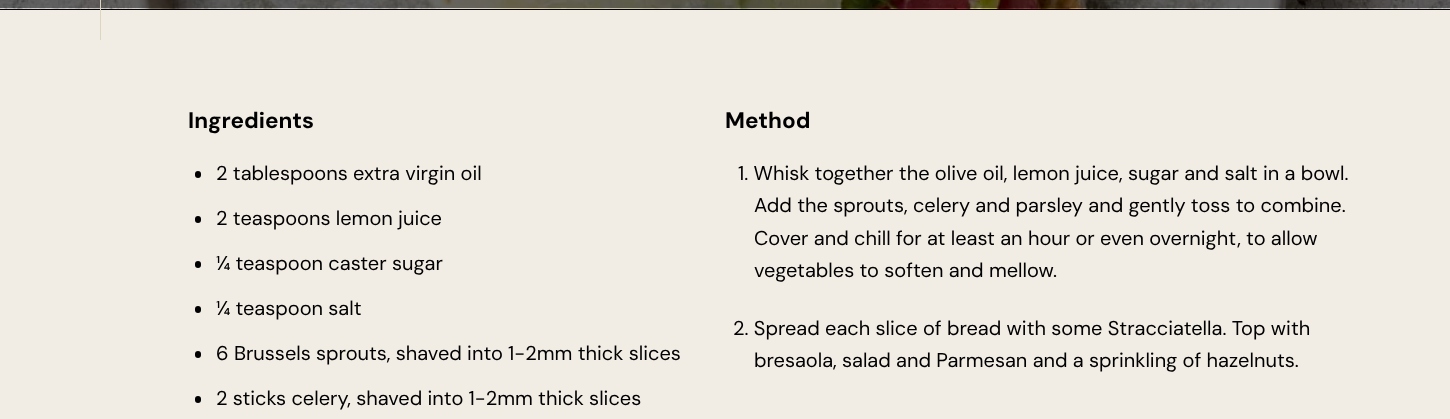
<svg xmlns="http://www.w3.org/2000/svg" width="1450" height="419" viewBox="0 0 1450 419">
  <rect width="100%" height="100%" fill="#fff"/>
  <image x="0" y="0" width="1450" height="9" href="img/1.png"/>
  <path d="M0 9h1450v1H0z" fill="#000"/>
  <path d="M0 10h1450v409H0z" fill="#f2ede4"/>
  <path d="M100 0h1v40H100z" fill="#ddd5bf"/>
  <rect x="195" y="171" width="6" height="7" rx="3" fill="#000"/>
  <rect x="195" y="216" width="6" height="7" rx="3" fill="#000"/>
  <rect x="195" y="261" width="6" height="7" rx="3" fill="#000"/>
  <rect x="195" y="306" width="6" height="7" rx="3" fill="#000"/>
  <rect x="195" y="351" width="6" height="7" rx="3" fill="#000"/>
  <rect x="195" y="396" width="6" height="7" rx="3" fill="#000"/>
  <text x="188" y="128" font-family="DM Sans" font-size="22.5" font-weight="bold" fill="#000">Ingredients</text>
  <g font-family="DM Sans" font-size="20" fill="#000">
    <text x="216" y="180">2 tablespoons extra virgin oil</text>
    <text x="216" y="225">2 teaspoons lemon juice</text>
    <text x="216" y="270">¼ teaspoon caster sugar</text>
    <text x="216" y="315">¼ teaspoon salt</text>
    <text x="216" y="360">6 Brussels sprouts, shaved into 1-2mm thick slices</text>
    <text x="216" y="405">2 sticks celery, shaved into 1-2mm thick slices</text>
  </g>
  <text x="725" y="128" font-family="DM Sans" font-size="22.5" font-weight="bold" fill="#000">Method</text>
  <g font-family="DM Sans" font-size="20" fill="#000">
    <text x="738" y="180">1. Whisk together the olive oil, lemon juice, sugar and salt in a bowl.</text>
    <text x="754" y="212">Add the sprouts, celery and parsley and gently toss to combine.</text>
    <text x="754" y="245">Cover and chill for at least an hour or even overnight, to allow</text>
    <text x="754" y="277">vegetables to soften and mellow.</text>
    <text x="733" y="335">2. Spread each slice of bread with some Stracciatella. Top with</text>
    <text x="754" y="367">bresaola, salad and Parmesan and a sprinkling of hazelnuts.</text>
  </g>
</svg>
